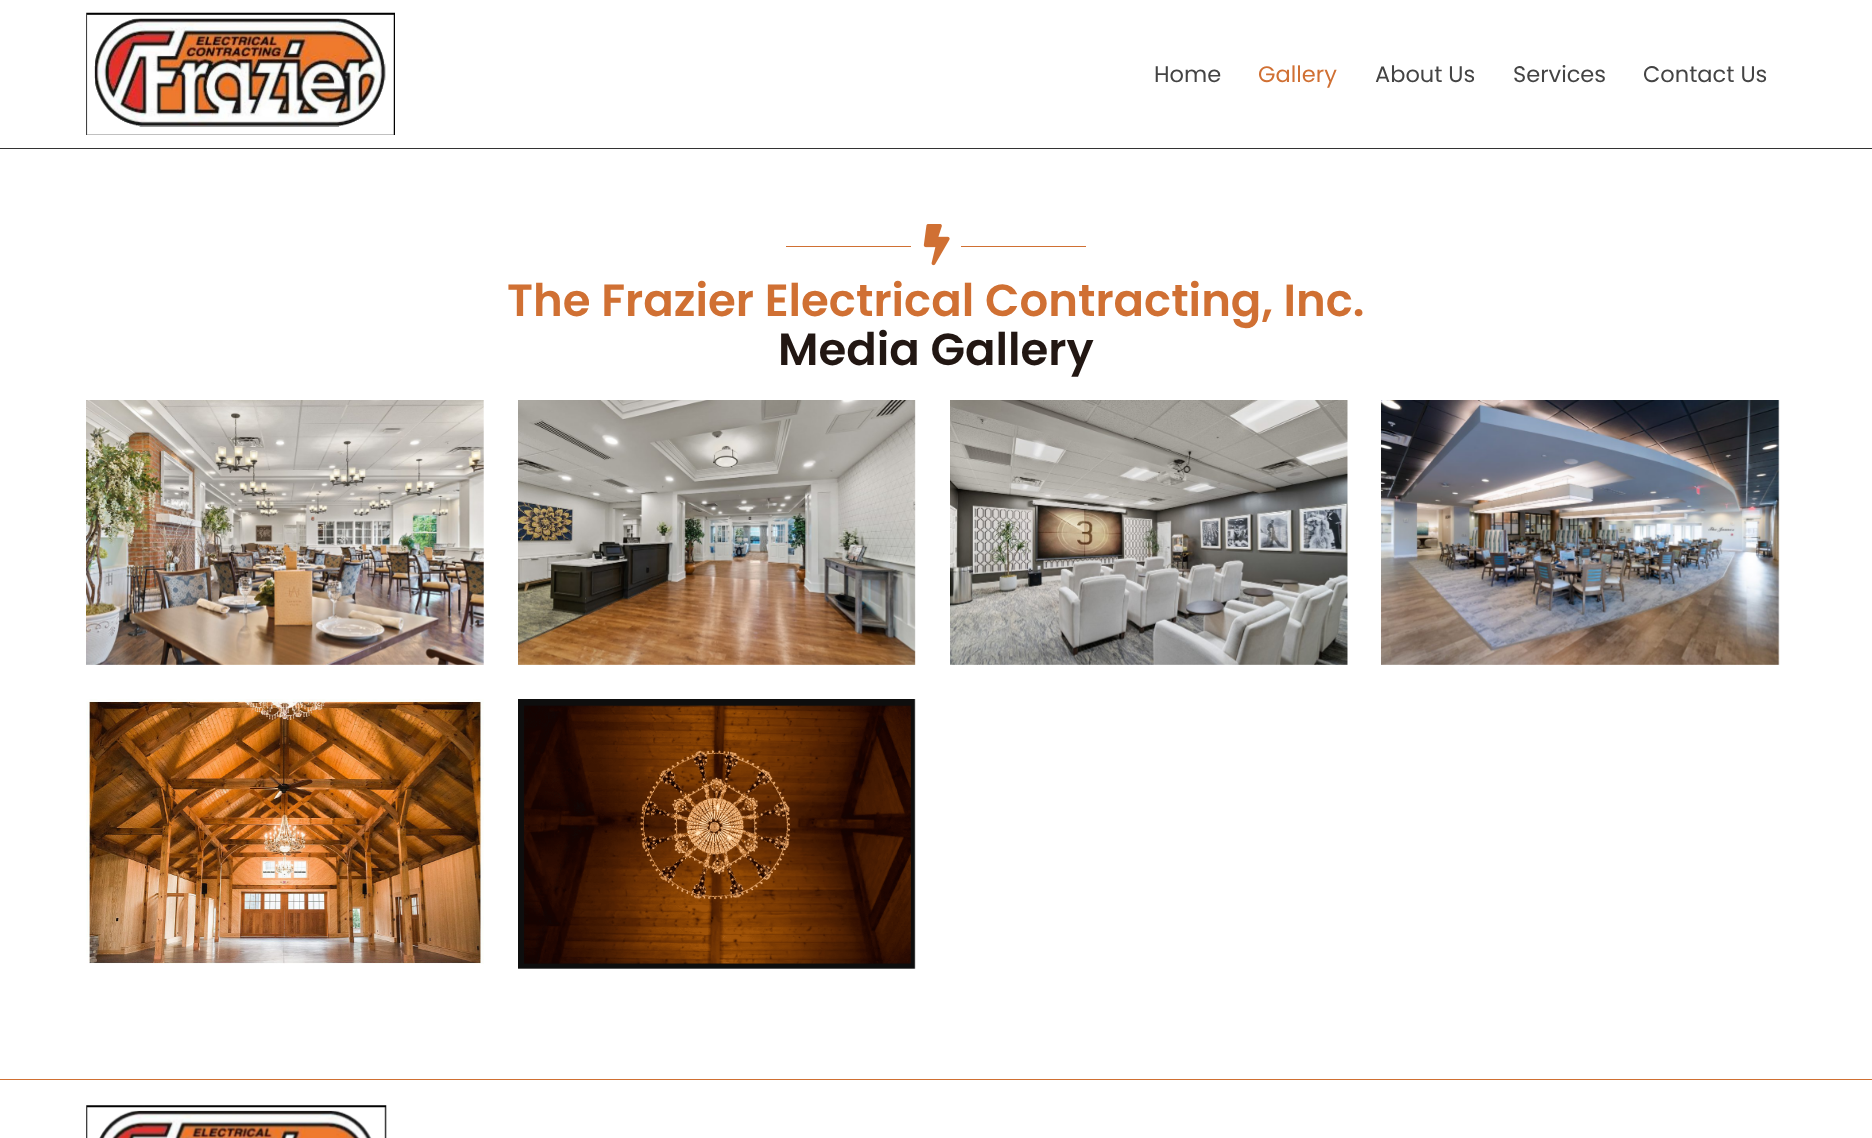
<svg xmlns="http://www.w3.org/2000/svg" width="1872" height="1138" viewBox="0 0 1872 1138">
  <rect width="100%" height="100%" fill="#fff"/>
  <path d="M0 148h1872v1H0z" fill="#333"/>
  <image x="86" y="12" width="309" height="123" href="img/1.png"/>
  <path d="M786 246h125v1H786z" fill="#d07033"/>
  <image x="923" y="224" width="27" height="42" href="img/2.png"/>
  <path d="M961 246h125v1H961z" fill="#d07033"/>
  <image x="86" y="400" width="398" height="265" href="img/3.png"/>
  <image x="518" y="400" width="398" height="265" href="img/4.png"/>
  <image x="950" y="400" width="398" height="265" href="img/5.png"/>
  <image x="1381" y="400" width="399" height="265" href="img/6.png"/>
  <image x="86" y="699" width="398" height="265" href="img/7.png"/>
  <image x="518" y="699" width="398" height="270" href="img/8.png"/>
  <path d="M0 1079h1872v1H0z" fill="#d07033"/>
  <image x="86" y="1105" width="301" height="33" href="img/9.png"/>
  <text x="1154" y="82" font-family="Poppins" font-size="22.5" fill="#444">Home</text>
  <text x="1258" y="82" font-family="Poppins" font-size="22.5" fill="#d07033">Gallery</text>
  <g font-family="Poppins" font-size="22.5" fill="#444">
    <text x="1375" y="82">About Us</text>
    <text x="1513" y="82">Services</text>
    <text x="1643" y="82">Contact Us</text>
  </g>
  <text x="507" y="316" font-family="Poppins" font-size="45" font-weight="600" fill="#d07033">The Frazier Electrical Contracting, Inc.</text>
  <text x="778" y="365" font-family="Poppins" font-size="45" font-weight="600" fill="#221713">Media Gallery</text>
</svg>
